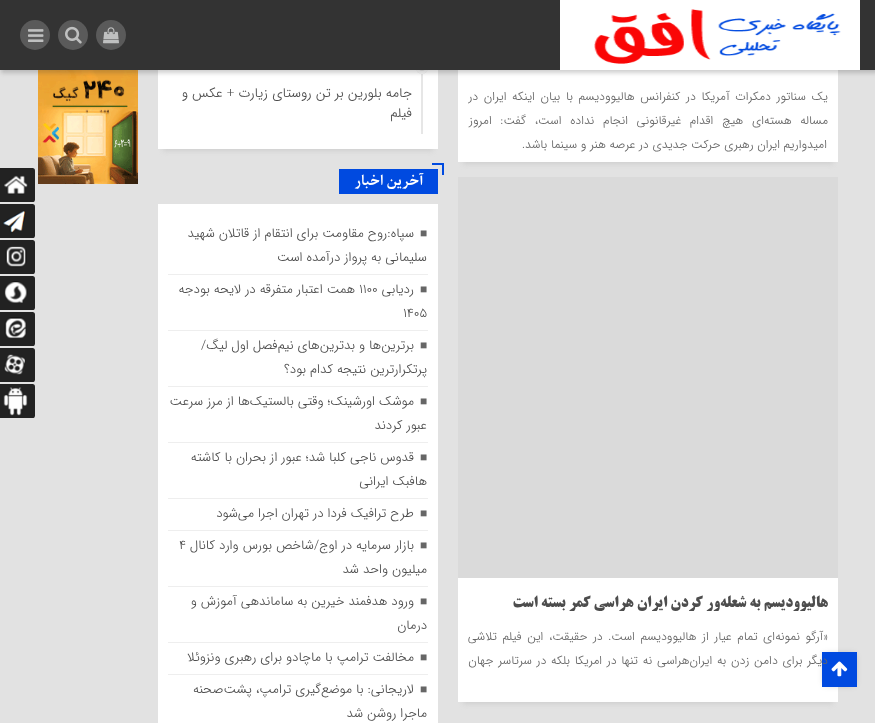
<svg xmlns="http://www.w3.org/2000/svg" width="875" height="723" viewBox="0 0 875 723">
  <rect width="100%" height="100%" fill="#e2e2e2"/>
  <path d="M463 189h370v515H463z" fill="#cfcfcf" filter="blur(2.5px)"/>
  <path d="M458 578h380v124H458z" fill="#fff"/>
  <path d="M825 655h29v29H825z" fill="#0000004d" filter="blur(3.5px)"/>
  <path d="M822 652h35v35H822z" fill="#004ae0"/>
  <image x="831" y="661" width="17" height="16" href="img/1.png"/>
  <path d="M463 -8h370v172H463z" fill="#cfcfcf" filter="blur(2.5px)"/>
  <path d="M458 70h380v92H458z" fill="#fff"/>
  <path d="M163 -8h270v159H163z" fill="#cfcfcf" filter="blur(2.5px)"/>
  <path d="M158 70h280v79H158z" fill="#fff"/>
  <path d="M421 73h2v61H421z" fill="#e6e6e6"/>
  <circle cx="422" cy="68" r="6" fill="#e6e6e6"/>
  <circle cx="422" cy="68" r="4.5" fill="none" stroke="#ffffffcc" stroke-width="3"/>
  <image x="38" y="70" width="100" height="114" href="img/6.png"/>
  <path d="M1 1h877v72H1z" fill="#3433333b" filter="blur(2px)"/>
  <path d="M0 0h875v70H0z" fill="#333"/>
  <path d="M560 0h300v70H560z" fill="#fff"/>
  <image x="594" y="9" width="247" height="55" href="img/2.png"/>
  <circle cx="111" cy="35" r="15" fill="#5a5a5a"/>
  <image x="103" y="27" width="16" height="17" href="img/3.png"/>
  <circle cx="73" cy="35" r="15" fill="#5a5a5a"/>
  <image x="65" y="26" width="17" height="18" href="img/4.png"/>
  <circle cx="35" cy="35" r="15" fill="#5a5a5a"/>
  <image x="28" y="29" width="16" height="13" href="img/5.png"/>
  <path d="M458 177h380v401H458z" fill="#dadada"/>
  <path d="M339 169h99v25H339z" fill="#004ae0"/>
  <path d="M432 163h12v2H432z" fill="#004ae0"/>
  <path d="M442 163h2v12H442z" fill="#004ae0"/>
  <path d="M158 204h280v519H158z" fill="#fff"/>
  <path d="M168 274h260v1H168z" fill="#eee"/>
  <path d="M168 330h260v1H168z" fill="#eee"/>
  <path d="M168 386h260v1H168z" fill="#eee"/>
  <path d="M168 442h260v1H168z" fill="#eee"/>
  <path d="M168 498h260v1H168z" fill="#eee"/>
  <path d="M168 530h260v1H168z" fill="#eee"/>
  <path d="M168 586h260v1H168z" fill="#eee"/>
  <path d="M168 642h260v1H168z" fill="#eee"/>
  <path d="M168 674h260v1H168z" fill="#eee"/>
  <image x="0" y="168" width="35" height="34" href="img/7.png"/>
  <image x="0" y="204" width="35" height="34" href="img/8.png"/>
  <image x="0" y="240" width="35" height="34" href="img/9.png"/>
  <image x="0" y="276" width="35" height="34" href="img/10.png"/>
  <image x="0" y="312" width="35" height="34" href="img/11.png"/>
  <image x="0" y="348" width="35" height="34" href="img/12.png"/>
  <image x="0" y="384" width="35" height="34" href="img/13.png"/>
  <g font-family="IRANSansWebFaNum" font-size="12" font-weight="300" direction="rtl" fill="#666">
    <text x="828" y="100" word-spacing="2">یک سناتور دمکرات آمریکا در کنفرانس هالیوودیسم با بیان اینکه ایران در</text>
    <text x="828" y="124" word-spacing="5">مساله هسته‌ای هیچ اقدام غیرقانونی انجام نداده است، گفت: امروز</text>
    <text x="827" y="148">امیدواریم ایران رهبری حرکت جدیدی در عرصه هنر و سینما باشد.</text>
  </g>
  <text x="828" y="607" font-family="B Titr" font-size="16" font-weight="bold" direction="rtl" fill="#4d4d4d">هالیوودیسم به شعله‌ور کردن ایران هراسی کمر بسته است</text>
  <g font-family="IRANSansWebFaNum" font-size="12" font-weight="300" direction="rtl" fill="#666">
    <text x="828" y="640" word-spacing="1.9">«آرگو نمونه‌ای تمام عیار از هالیوودیسم است. در حقیقت، این فیلم تلاشی</text>
    <text x="828" y="664" word-spacing="1.1">دیگر برای دامن زدن به ایران‌هراسی نه تنها در امریکا بلکه در سرتاسر جهان</text>
  </g>
  <g font-family="IRANSansWebFaNum" font-size="13.5" font-weight="300" direction="rtl" fill="#4d4d4d">
    <text x="412" y="97">جامه بلورین بر تن روستای زیارت + عکس و</text>
    <text x="412" y="117">فیلم</text>
  </g>
  <text x="423" y="185" font-family="Parastoo" font-size="14" font-weight="bold" direction="rtl" fill="#fff">آخرین اخبار</text>
  <text x="420" y="237" font-family="Liberation Serif" font-size="12" fill="#666">■</text>
  <g font-family="IRANSansWebFaNum" font-size="13" font-weight="300" direction="rtl" fill="#4d4d4d">
    <text x="414" y="237">سپاه:روح مقاومت برای انتقام از قاتلان شهید</text>
    <text x="427" y="261">سلیمانی به پرواز درآمده است</text>
  </g>
  <text x="420" y="293" font-family="Liberation Serif" font-size="12" fill="#666">■</text>
  <text x="414" y="293" font-family="IRANSansWebFaNum" font-size="13" font-weight="300" direction="rtl" fill="#4d4d4d">ردیابی</text>
  <text x="359" y="293" font-family="IRANSansWebFaNum" font-size="13" font-weight="300" fill="#4d4d4d">۱۱۰۰</text>
  <text x="355" y="293" font-family="IRANSansWebFaNum" font-size="13" font-weight="300" direction="rtl" fill="#4d4d4d">همت اعتبار متفرقه در لایحه بودجه</text>
  <text x="403" y="317" font-family="IRANSansWebFaNum" font-size="13" font-weight="300" fill="#4d4d4d">۱۴۰۵</text>
  <text x="420" y="349" font-family="Liberation Serif" font-size="12" fill="#666">■</text>
  <g font-family="IRANSansWebFaNum" font-size="13" font-weight="300" direction="rtl" fill="#4d4d4d">
    <text x="414" y="349">برترین‌ها و بدترین‌های نیم‌فصل اول لیگ/</text>
    <text x="427" y="373">پرتکرارترین نتیجه کدام بود؟</text>
  </g>
  <text x="420" y="405" font-family="Liberation Serif" font-size="12" fill="#666">■</text>
  <g font-family="IRANSansWebFaNum" font-size="13" font-weight="300" direction="rtl" fill="#4d4d4d">
    <text x="414" y="405">موشک اورشینک؛ وقتی بالستیک‌ها از مرز سرعت</text>
    <text x="427" y="429">عبور کردند</text>
  </g>
  <text x="420" y="461" font-family="Liberation Serif" font-size="12" fill="#666">■</text>
  <g font-family="IRANSansWebFaNum" font-size="13" font-weight="300" direction="rtl" fill="#4d4d4d">
    <text x="414" y="461">قدوس ناجی کلبا شد؛ عبور از بحران با کاشته</text>
    <text x="427" y="485">هافبک ایرانی</text>
  </g>
  <text x="420" y="517" font-family="Liberation Serif" font-size="12" fill="#666">■</text>
  <text x="414" y="517" font-family="IRANSansWebFaNum" font-size="13" font-weight="300" direction="rtl" fill="#4d4d4d">طرح ترافیک فردا در تهران اجرا می‌شود</text>
  <text x="420" y="549" font-family="Liberation Serif" font-size="12" fill="#666">■</text>
  <text x="414" y="549" font-family="IRANSansWebFaNum" font-size="13" font-weight="300" direction="rtl" fill="#4d4d4d">بازار سرمایه در اوج/شاخص بورس وارد کانال</text>
  <text x="179" y="549" font-family="IRANSansWebFaNum" font-size="13" font-weight="300" fill="#4d4d4d">۴</text>
  <text x="427" y="573" font-family="IRANSansWebFaNum" font-size="13" font-weight="300" direction="rtl" fill="#4d4d4d">میلیون واحد شد</text>
  <text x="420" y="605" font-family="Liberation Serif" font-size="12" fill="#666">■</text>
  <g font-family="IRANSansWebFaNum" font-size="13" font-weight="300" direction="rtl" fill="#4d4d4d">
    <text x="414" y="605">ورود هدفمند خیرین به ساماندهی آموزش و</text>
    <text x="427" y="629">درمان</text>
  </g>
  <text x="420" y="661" font-family="Liberation Serif" font-size="12" fill="#666">■</text>
  <text x="414" y="661" font-family="IRANSansWebFaNum" font-size="13" font-weight="300" direction="rtl" fill="#4d4d4d">مخالفت ترامپ با ماچادو برای رهبری ونزوئلا</text>
  <text x="420" y="693" font-family="Liberation Serif" font-size="12" fill="#666">■</text>
  <g font-family="IRANSansWebFaNum" font-size="13" font-weight="300" direction="rtl" fill="#4d4d4d">
    <text x="414" y="693">لاریجانی: با موضع‌گیری ترامپ، پشت‌صحنه‌</text>
    <text x="427" y="717">ماجرا روشن شد</text>
  </g>
</svg>
